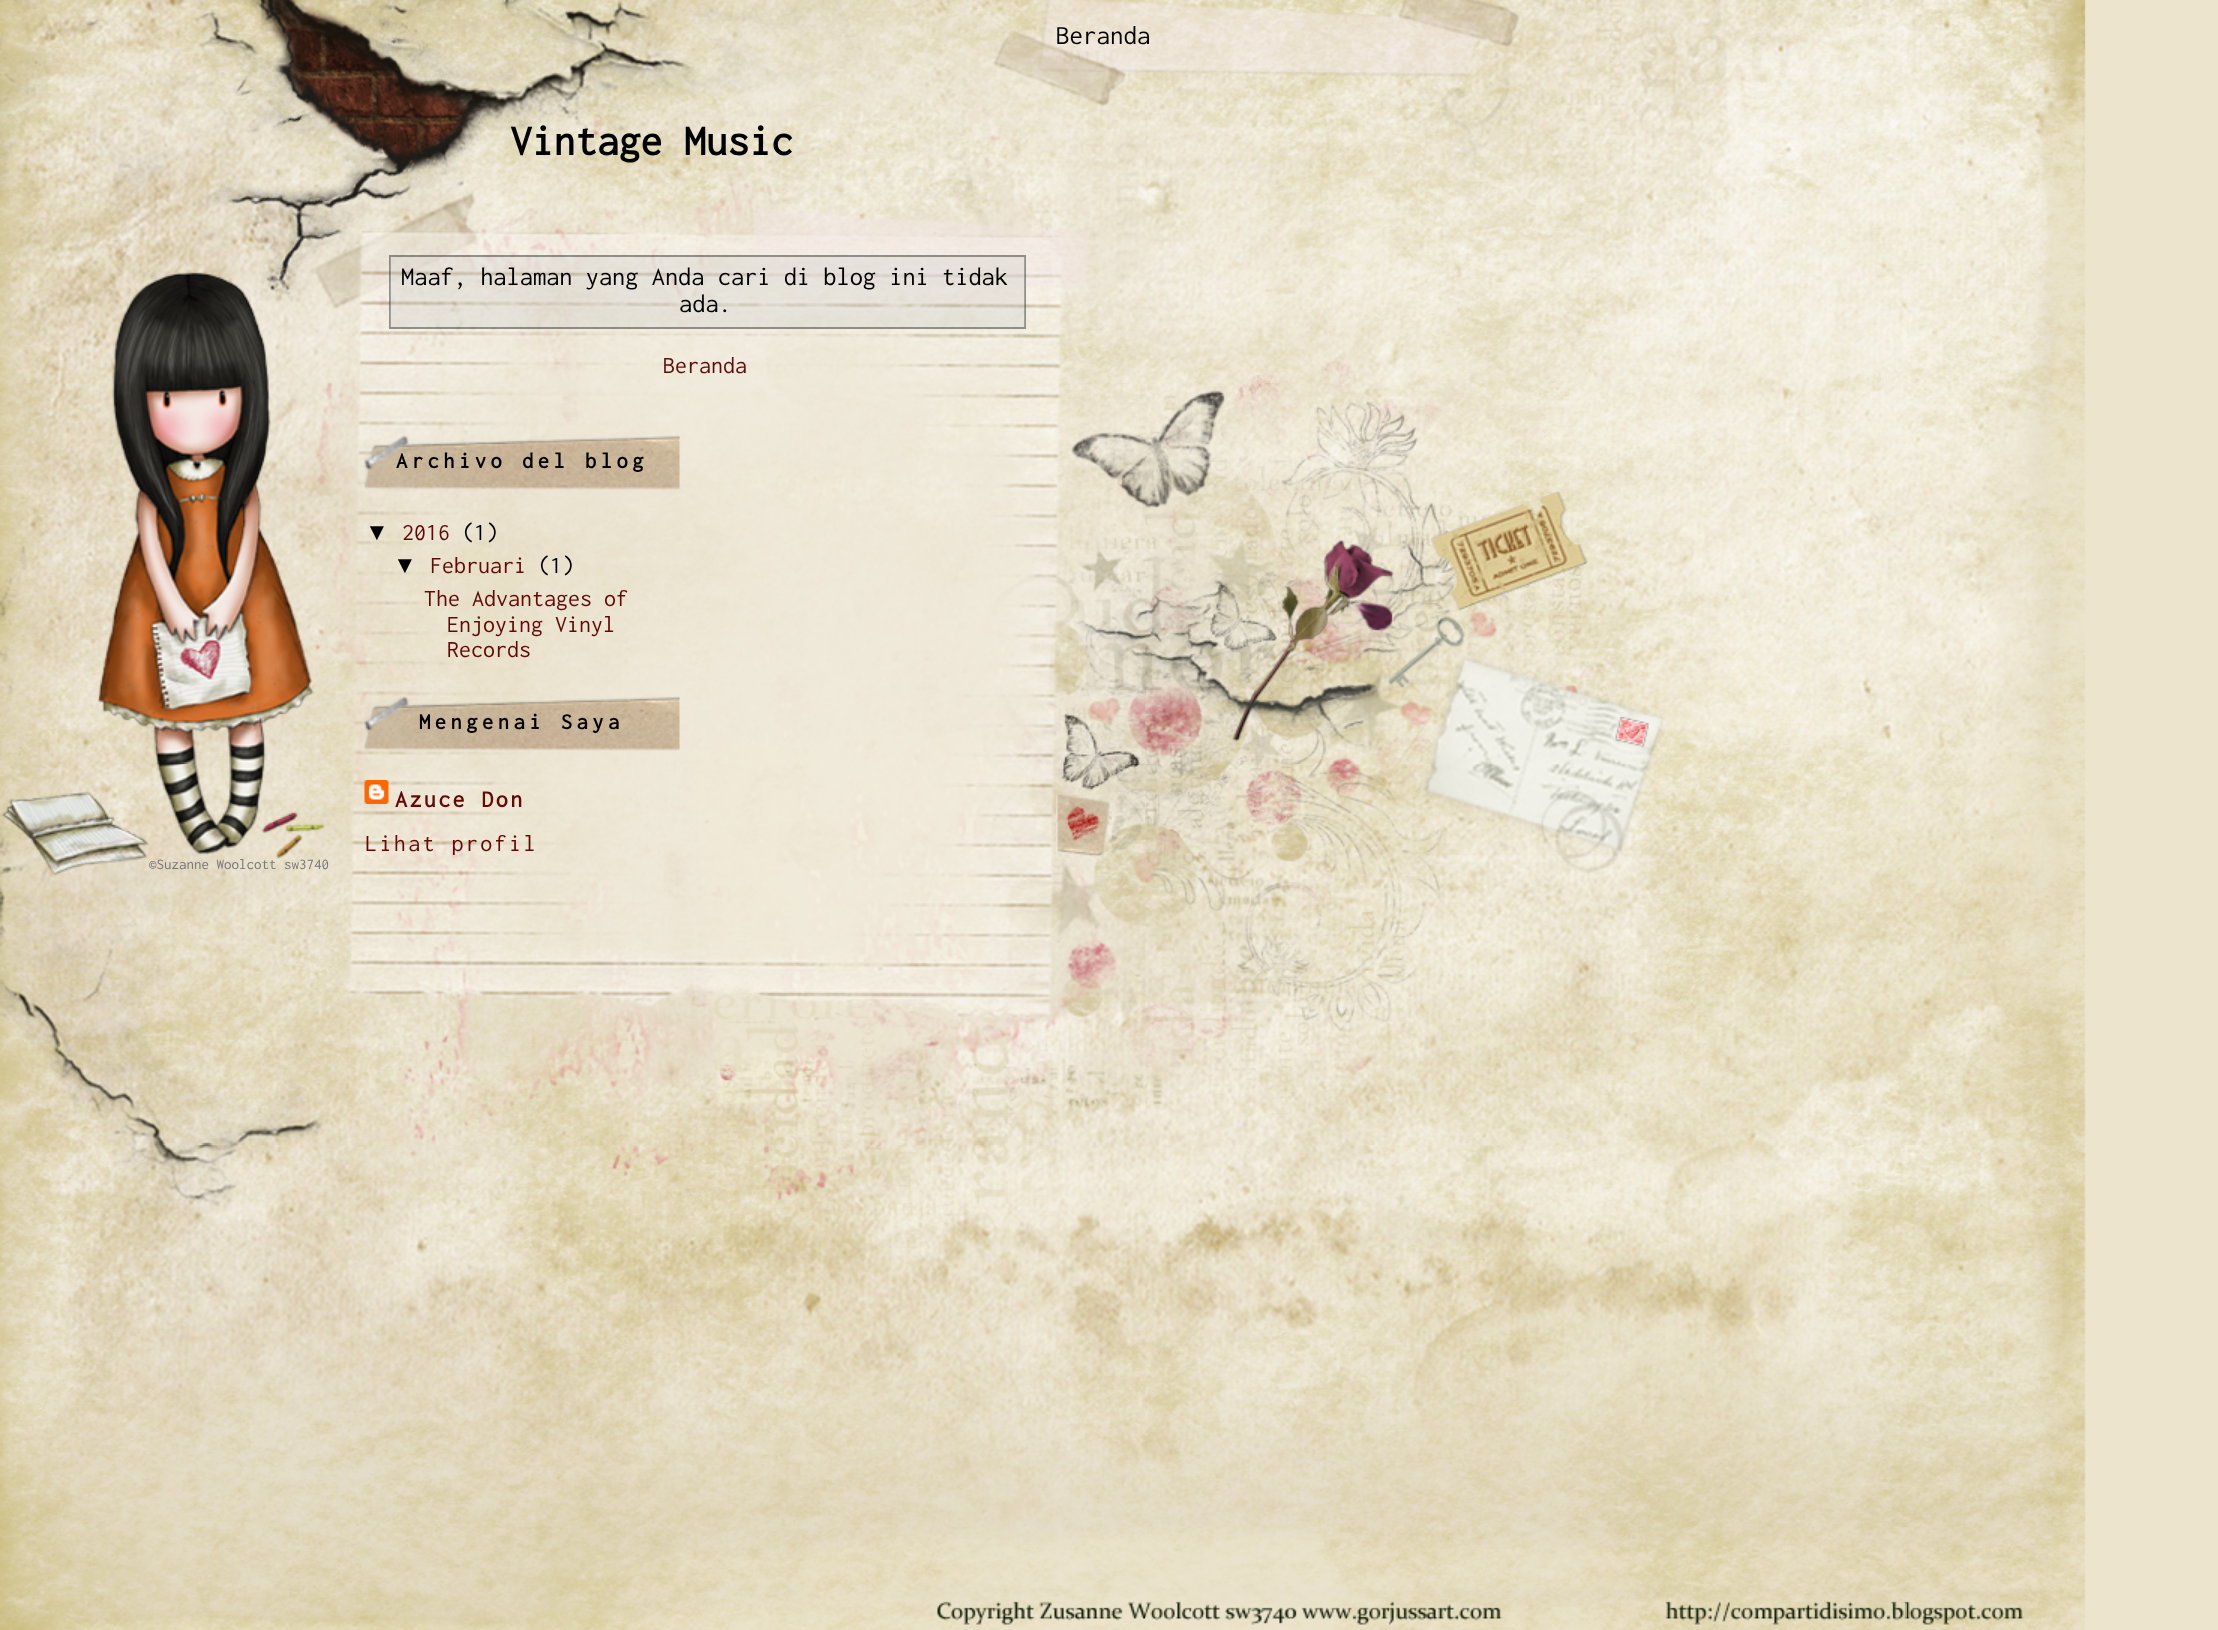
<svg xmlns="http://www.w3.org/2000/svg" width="2218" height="1630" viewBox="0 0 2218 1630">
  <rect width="100%" height="100%" fill="#ece4cd"/>
  <image x="0" y="0" width="2086" height="1630" href="img/1.png"/>
  <path d="M390 256h635v72H390z" fill="none" stroke="#00000066" stroke-width="2"/>
  <path d="M390 257h635v70H390z" fill="#cccccc52"/>
  <image x="364" y="435" width="316" height="56" href="img/2.png"/>
  <image x="364" y="696" width="316" height="55" href="img/3.png"/>
  <image x="364" y="780" width="25" height="24" href="img/4.png"/>
  <image x="1056" y="795" width="56" height="63" href="img/5.png"/>
  <text x="1056" y="44" font-family="Inconsolata" font-size="27" fill="#000">Beranda</text>
  <text x="510" y="155" font-family="Inconsolata" font-size="43.5" font-weight="bold" fill="#000">Vintage Music</text>
  <g font-family="Inconsolata" font-size="26.4" fill="#000">
    <text x="401" y="285">Maaf, halaman yang Anda cari di blog ini tidak</text>
    <text x="679" y="312">ada.</text>
  </g>
  <text x="663" y="373" font-family="Inconsolata" font-size="24" fill="#610907">Beranda</text>
  <text x="396" y="468" font-family="Inconsolata" font-size="22.5" font-weight="bold" letter-spacing="4.5" fill="#000">Archivo del blog</text>
  <text x="365" y="540" font-family="Liberation Sans" font-size="24" fill="#000">▼</text>
  <text x="402" y="540" font-family="Inconsolata" font-size="24" fill="#610907">2016</text>
  <text x="462" y="540" font-family="Inconsolata" font-size="24" fill="#000">(1)</text>
  <text x="393" y="573" font-family="Liberation Sans" font-size="24" fill="#000">▼</text>
  <text x="430" y="573" font-family="Inconsolata" font-size="24" fill="#610907">Februari</text>
  <text x="538" y="573" font-family="Inconsolata" font-size="24" fill="#000">(1)</text>
  <g font-family="Inconsolata" font-size="24" fill="#610907">
    <text x="424" y="606">The Advantages of</text>
    <text x="447" y="632">Enjoying Vinyl</text>
    <text x="447" y="657">Records</text>
  </g>
  <text x="419" y="729" font-family="Inconsolata" font-size="22.5" font-weight="bold" letter-spacing="4.5" fill="#000">Mengenai Saya</text>
  <text x="395" y="807" font-family="Inconsolata" font-size="24" font-weight="bold" letter-spacing="2.4" fill="#610907">Azuce Don</text>
  <text x="365" y="851" font-family="Inconsolata" font-size="24" letter-spacing="2.4" fill="#610907">Lihat profil</text>
  <text x="149" y="869" font-family="Inconsolata" font-size="15" fill="#777">©Suzanne Woolcott sw3740</text>
</svg>
